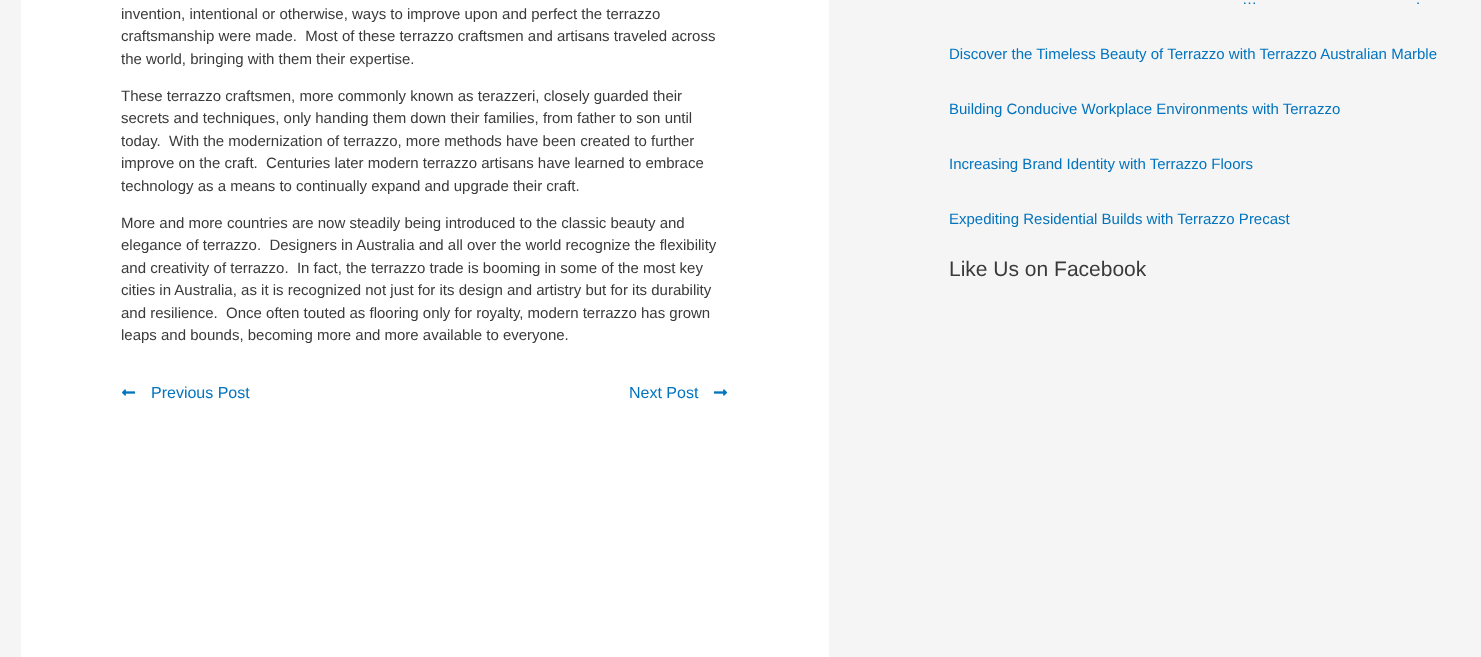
<svg xmlns="http://www.w3.org/2000/svg" width="1481" height="657" viewBox="0 0 1481 657">
  <rect width="100%" height="100%" fill="#f5f5f5"/>
  <path d="M21 0h808v657H21z" fill="#fff"/>
  <image x="122" y="389" width="14" height="7" href="img/1.png"/>
  <image x="713" y="389" width="14" height="7" href="img/2.png"/>
  <g font-family="Liberation Sans" font-size="15" fill="#3a3a3a">
    <text x="121" y="19">invention, intentional or otherwise, ways to improve upon and perfect the terrazzo</text>
    <text x="121" y="41" xml:space="preserve">craftsmanship were made.  Most of these terrazzo craftsmen and artisans traveled across</text>
    <text x="121" y="64">the world, bringing with them their expertise.</text>
    <text x="121" y="101">These terrazzo craftsmen, more commonly known as terazzeri, closely guarded their</text>
    <text x="121" y="123">secrets and techniques, only handing them down their families, from father to son until</text>
    <text x="121" y="146" xml:space="preserve">today.  With the modernization of terrazzo, more methods have been created to further</text>
    <text x="121" y="168" xml:space="preserve">improve on the craft.  Centuries later modern terrazzo artisans have learned to embrace</text>
    <text x="121" y="191">technology as a means to continually expand and upgrade their craft.</text>
    <text x="121" y="228">More and more countries are now steadily being introduced to the classic beauty and</text>
    <text x="121" y="250" xml:space="preserve">elegance of terrazzo.  Designers in Australia and all over the world recognize the flexibility</text>
    <text x="121" y="273" xml:space="preserve">and creativity of terrazzo.  In fact, the terrazzo trade is booming in some of the most key</text>
    <text x="121" y="295">cities in Australia, as it is recognized not just for its design and artistry but for its durability</text>
    <text x="121" y="318" xml:space="preserve">and resilience.  Once often touted as flooring only for royalty, modern terrazzo has grown</text>
    <text x="121" y="340">leaps and bounds, becoming more and more available to everyone.</text>
  </g>
  <g font-family="Liberation Sans" font-size="16" fill="#0274be">
    <text x="151" y="398">Previous Post</text>
    <text x="629" y="398">Next Post</text>
  </g>
  <g font-family="Liberation Sans" font-size="15" fill="#0274be">
    <text x="1242" y="4">…</text>
    <text x="1416" y="4">.</text>
    <text x="949" y="59">Discover the Timeless Beauty of Terrazzo with Terrazzo Australian Marble</text>
    <text x="949" y="114">Building Conducive Workplace Environments with Terrazzo</text>
    <text x="949" y="169">Increasing Brand Identity with Terrazzo Floors</text>
    <text x="949" y="224">Expediting Residential Builds with Terrazzo Precast</text>
  </g>
  <text x="949" y="276" font-family="Liberation Sans" font-size="21" fill="#3a3a3a">Like Us on Facebook</text>
</svg>
